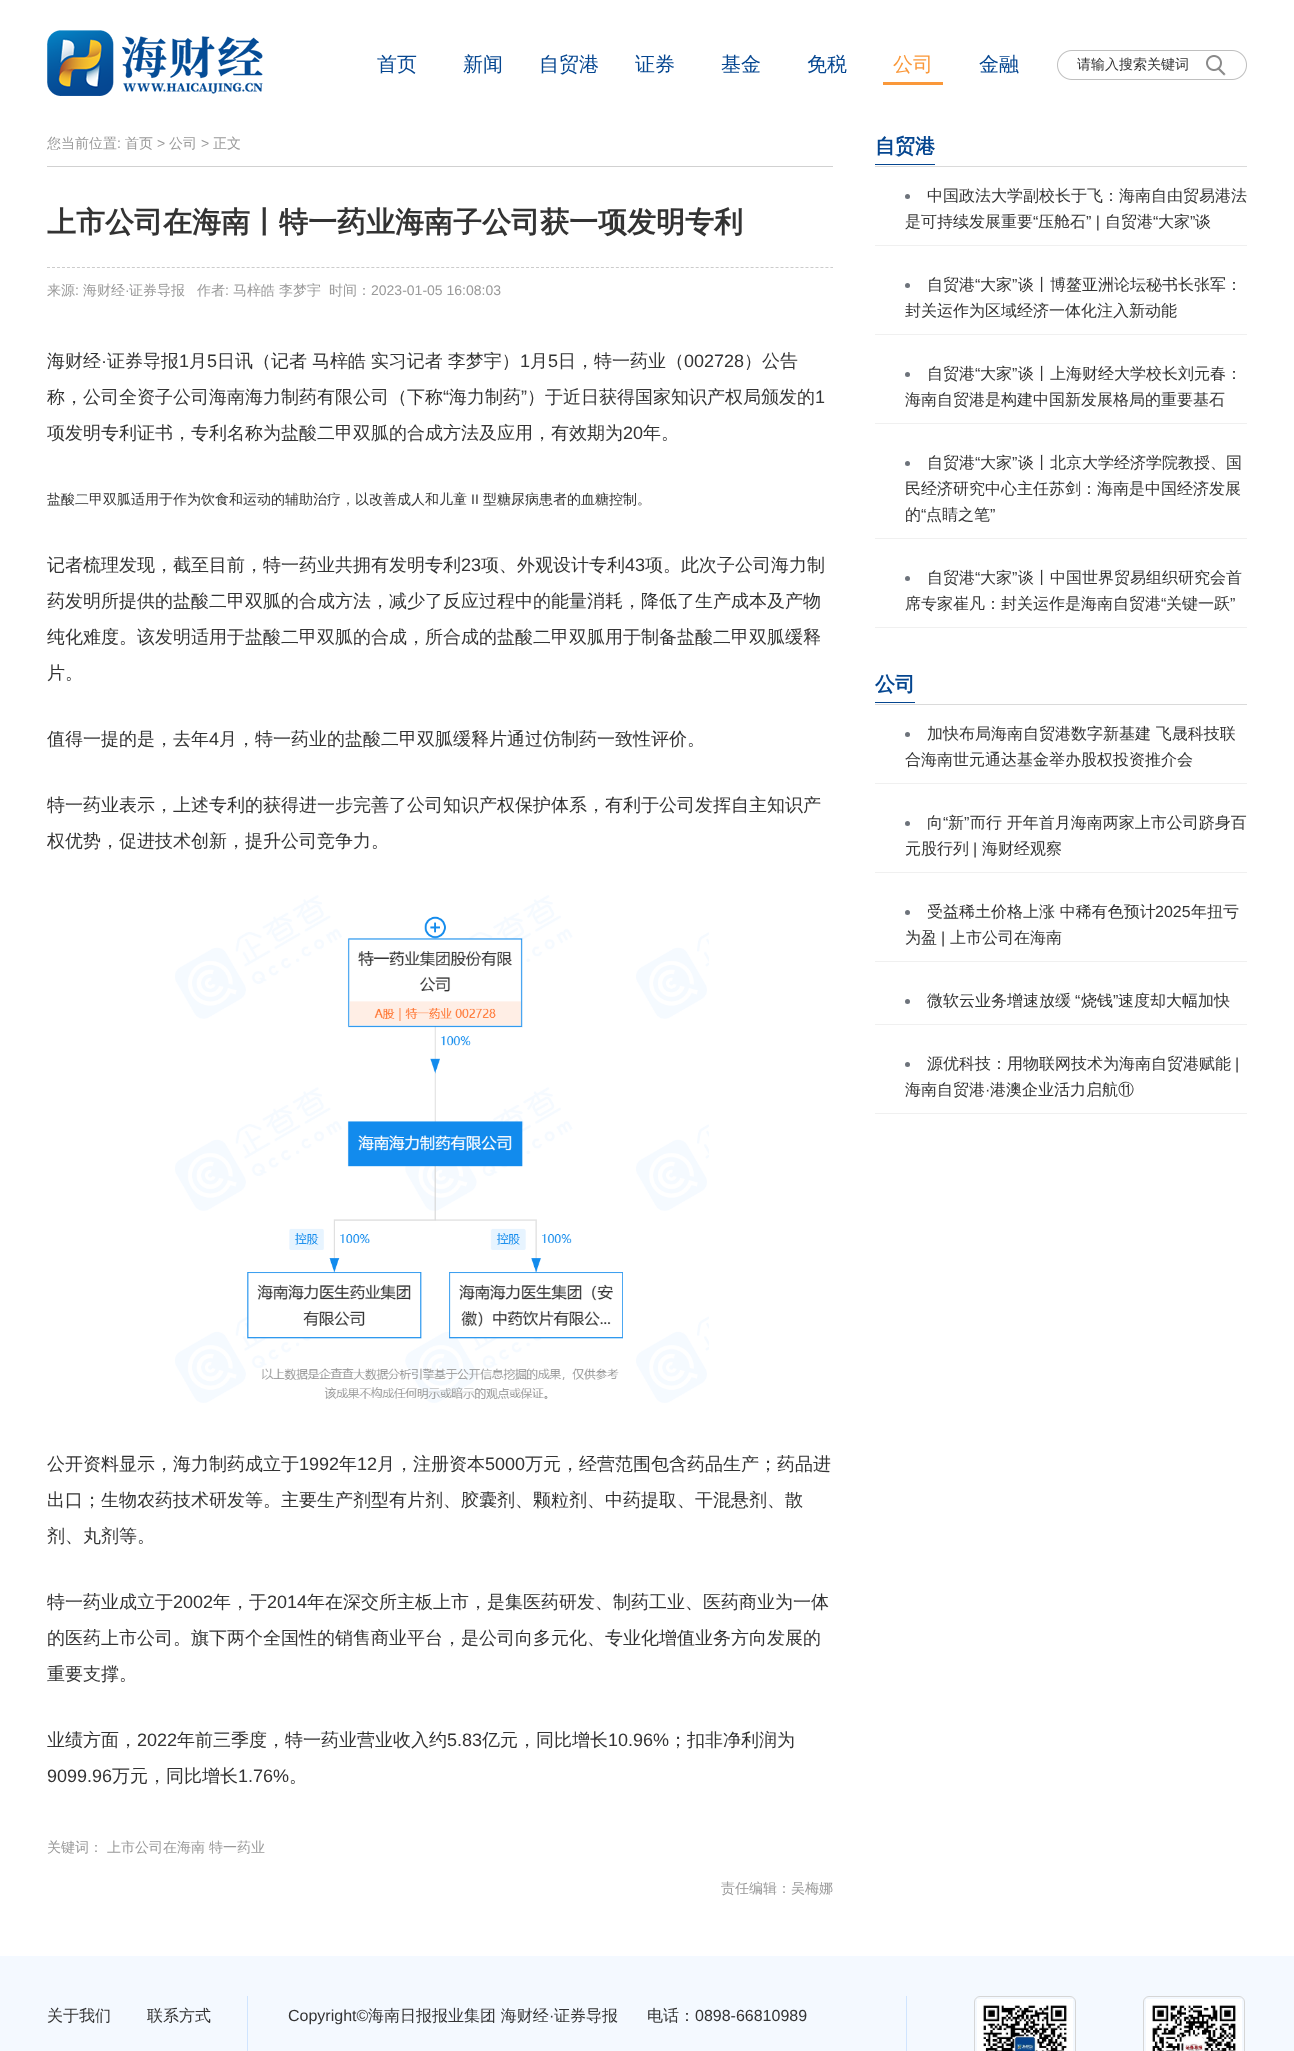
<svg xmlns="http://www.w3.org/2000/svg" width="1294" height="2051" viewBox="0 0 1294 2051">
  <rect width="100%" height="100%" fill="#fff"/>
  <image x="47" y="30" width="216" height="66" href="img/1.png"/>
  <path d="M883 82h60v3H883z" fill="#fa983a"/>
  <image x="1057" y="50" width="190" height="30" href="img/2.png"/>
  <image x="1206" y="55" width="20" height="21" href="img/3.png"/>
  <path d="M47 166h786v1H47z" fill="#d1d1d1"/>
  <path d="M47 267.5H833" fill="none" stroke="#ccc" stroke-dasharray="3 1.99"/>
  <image x="175" y="895" width="534" height="508" href="img/4.png"/>
  <path d="M875 166h372v1H875z" fill="#dadada"/>
  <path d="M875 164h60v1H875z" fill="#054690"/>
  <path d="M875 245h372v1H875z" fill="#f0f0f0"/>
  <circle cx="907.5" cy="196.5" r="2.5" fill="#6d737b"/>
  <path d="M875 334h372v1H875z" fill="#f0f0f0"/>
  <circle cx="907.5" cy="285.5" r="2.5" fill="#6d737b"/>
  <path d="M875 423h372v1H875z" fill="#f0f0f0"/>
  <circle cx="907.5" cy="374.5" r="2.5" fill="#6d737b"/>
  <path d="M875 538h372v1H875z" fill="#f0f0f0"/>
  <circle cx="907.5" cy="463.5" r="2.5" fill="#6d737b"/>
  <path d="M875 627h372v1H875z" fill="#f0f0f0"/>
  <circle cx="907.5" cy="578.5" r="2.5" fill="#6d737b"/>
  <path d="M875 704h372v1H875z" fill="#dadada"/>
  <path d="M875 702h40v1H875z" fill="#054690"/>
  <path d="M875 783h372v1H875z" fill="#f0f0f0"/>
  <circle cx="907.5" cy="734.5" r="2.5" fill="#6d737b"/>
  <path d="M875 872h372v1H875z" fill="#f0f0f0"/>
  <circle cx="907.5" cy="823.5" r="2.5" fill="#6d737b"/>
  <path d="M875 961h372v1H875z" fill="#f0f0f0"/>
  <circle cx="907.5" cy="912.5" r="2.5" fill="#6d737b"/>
  <path d="M875 1024h372v1H875z" fill="#f0f0f0"/>
  <circle cx="907.5" cy="1001.5" r="2.5" fill="#6d737b"/>
  <path d="M875 1113h372v1H875z" fill="#f0f0f0"/>
  <circle cx="907.5" cy="1064.5" r="2.5" fill="#6d737b"/>
  <path d="M0 1956h1294v95H0z" fill="#f4f9ff"/>
  <path d="M247 1996h1v55H247z" fill="#d0e5ff"/>
  <path d="M906 1996h1v55H906z" fill="#d0e5ff"/>
  <rect x="974.5" y="1996.5" width="101" height="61" rx="5.5" fill="none" stroke="#d6d6d6"/>
  <image x="977" y="1999" width="96" height="52" href="img/5.png"/>
  <rect x="1143.5" y="1996.5" width="101" height="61" rx="5.5" fill="none" stroke="#d6d6d6"/>
  <image x="1146" y="1999" width="96" height="52" href="img/6.png"/>
  <g font-family="WenQuanYi Zen Hei" font-size="20" font-weight="500" fill="#054690">
    <text x="377" y="71">首页</text>
    <text x="463" y="71">新闻</text>
    <text x="539" y="71">自贸港</text>
    <text x="635" y="71">证券</text>
    <text x="721" y="71">基金</text>
    <text x="807" y="71">免税</text>
  </g>
  <text x="893" y="71" font-family="WenQuanYi Zen Hei" font-size="20" font-weight="500" fill="#fa983a">公司</text>
  <text x="979" y="71" font-family="WenQuanYi Zen Hei" font-size="20" font-weight="500" fill="#054690">金融</text>
  <text x="1077" y="69" font-family="WenQuanYi Zen Hei" font-size="14" font-weight="500" fill="#333">请输入搜索关键词</text>
  <text x="47" y="148" font-family="WenQuanYi Zen Hei" font-size="14" font-weight="500" fill="#999">您当前位置</text>
  <text x="117" y="148" font-family="Liberation Sans" font-size="14" fill="#999">:</text>
  <text x="125" y="148" font-family="WenQuanYi Zen Hei" font-size="14" font-weight="500" fill="#999">首页</text>
  <text x="157" y="148" font-family="Liberation Sans" font-size="14" fill="#999">&gt;</text>
  <text x="169" y="148" font-family="WenQuanYi Zen Hei" font-size="14" font-weight="500" fill="#999">公司</text>
  <text x="201" y="148" font-family="Liberation Sans" font-size="14" fill="#999">&gt;</text>
  <text x="213" y="148" font-family="WenQuanYi Zen Hei" font-size="14" font-weight="500" fill="#999">正文</text>
  <text x="47" y="232" font-family="WenQuanYi Zen Hei" font-size="29" font-weight="bold" fill="#333">上市公司在海南丨特一药业海南子公司获一项发明专利</text>
  <text x="47" y="295" font-family="WenQuanYi Zen Hei" font-size="14" font-weight="500" fill="#999">来源</text>
  <text x="75" y="295" font-family="Liberation Sans" font-size="14" fill="#999">:</text>
  <text x="83" y="295" font-family="WenQuanYi Zen Hei" font-size="14" font-weight="500" fill="#999">海财经</text>
  <text x="125" y="295" font-family="Liberation Sans" font-size="14" fill="#999">·</text>
  <g font-family="WenQuanYi Zen Hei" font-size="14" font-weight="500" fill="#999">
    <text x="129" y="295">证券导报</text>
    <text x="197" y="295">作者</text>
  </g>
  <text x="225" y="295" font-family="Liberation Sans" font-size="14" fill="#999">:</text>
  <g font-family="WenQuanYi Zen Hei" font-size="14" font-weight="500" fill="#999">
    <text x="233" y="295">马梓皓</text>
    <text x="279" y="295">李梦宇</text>
    <text x="329" y="295">时间：</text>
  </g>
  <text x="371" y="295" font-family="Liberation Sans" font-size="14" fill="#999">2023-01-05 16:08:03</text>
  <text x="47" y="367" font-family="WenQuanYi Zen Hei" font-size="18" font-weight="500" fill="#333">海财经</text>
  <text x="101" y="367" font-family="Liberation Sans" font-size="18" fill="#333">·</text>
  <text x="107" y="367" font-family="WenQuanYi Zen Hei" font-size="18" font-weight="500" fill="#333">证券导报</text>
  <text x="179" y="367" font-family="Liberation Sans" font-size="18" fill="#333">1</text>
  <text x="189" y="367" font-family="WenQuanYi Zen Hei" font-size="18" font-weight="500" fill="#333">月</text>
  <text x="207" y="367" font-family="Liberation Sans" font-size="18" fill="#333">5</text>
  <text x="217" y="367" word-spacing="-0.5" font-family="WenQuanYi Zen Hei" font-size="18" font-weight="500" fill="#333">日讯（记者 马梓皓 实习记者 李梦宇）</text>
  <text x="520" y="367" font-family="Liberation Sans" font-size="18" fill="#333">1</text>
  <text x="530" y="367" font-family="WenQuanYi Zen Hei" font-size="18" font-weight="500" fill="#333">月</text>
  <text x="548" y="367" font-family="Liberation Sans" font-size="18" fill="#333">5</text>
  <text x="558" y="367" font-family="WenQuanYi Zen Hei" font-size="18" font-weight="500" fill="#333">日，特一药业（</text>
  <text x="684" y="367" font-family="Liberation Sans" font-size="18" fill="#333">002728</text>
  <g font-family="WenQuanYi Zen Hei" font-size="18" font-weight="500" fill="#333">
    <text x="744" y="367">）公告</text>
    <text x="47" y="403">称，公司全资子公司海南海力制药有限公司（下称</text>
  </g>
  <text x="443" y="403" font-family="Liberation Sans" font-size="18" fill="#333">“</text>
  <text x="449" y="403" font-family="WenQuanYi Zen Hei" font-size="18" font-weight="500" fill="#333">海力制药</text>
  <text x="521" y="403" font-family="Liberation Sans" font-size="18" fill="#333">”</text>
  <text x="527" y="403" font-family="WenQuanYi Zen Hei" font-size="18" font-weight="500" fill="#333">）于近日获得国家知识产权局颁发的</text>
  <text x="815" y="403" font-family="Liberation Sans" font-size="18" fill="#333">1</text>
  <text x="47" y="439" font-family="WenQuanYi Zen Hei" font-size="18" font-weight="500" fill="#333">项发明专利证书，专利名称为盐酸二甲双胍的合成方法及应用，有效期为</text>
  <text x="623" y="439" font-family="Liberation Sans" font-size="18" fill="#333">20</text>
  <text x="643" y="439" font-family="WenQuanYi Zen Hei" font-size="18" font-weight="500" fill="#333">年。</text>
  <text x="47" y="504" font-family="WenQuanYi Zen Hei" font-size="14" font-weight="500" fill="#333">盐酸二甲双胍适用于作为饮食和运动的辅助治疗，以改善成人和儿童</text>
  <text x="471" y="504" font-family="Liberation Sans" font-size="14" fill="#333">II</text>
  <text x="483" y="504" font-family="WenQuanYi Zen Hei" font-size="14" font-weight="500" fill="#333">型糖尿病患者的血糖控制。</text>
  <text x="47" y="571" font-family="WenQuanYi Zen Hei" font-size="18" font-weight="500" fill="#333">记者梳理发现，截至目前，特一药业共拥有发明专利</text>
  <text x="461" y="571" font-family="Liberation Sans" font-size="18" fill="#333">23</text>
  <text x="481" y="571" font-family="WenQuanYi Zen Hei" font-size="18" font-weight="500" fill="#333">项、外观设计专利</text>
  <text x="625" y="571" font-family="Liberation Sans" font-size="18" fill="#333">43</text>
  <g font-family="WenQuanYi Zen Hei" font-size="18" font-weight="500" fill="#333">
    <text x="645" y="571">项。此次子公司海力制</text>
    <text x="47" y="607">药发明所提供的盐酸二甲双胍的合成方法，减少了反应过程中的能量消耗，降低了生产成本及产物</text>
    <text x="47" y="643">纯化难度。该发明适用于盐酸二甲双胍的合成，所合成的盐酸二甲双胍用于制备盐酸二甲双胍缓释</text>
    <text x="47" y="679">片。</text>
    <text x="47" y="745">值得一提的是，去年</text>
  </g>
  <text x="209" y="745" font-family="Liberation Sans" font-size="18" fill="#333">4</text>
  <g font-family="WenQuanYi Zen Hei" font-size="18" font-weight="500" fill="#333">
    <text x="219" y="745">月，特一药业的盐酸二甲双胍缓释片通过仿制药一致性评价。</text>
    <text x="47" y="811">特一药业表示，上述专利的获得进一步完善了公司知识产权保护体系，有利于公司发挥自主知识产</text>
    <text x="47" y="847">权优势，促进技术创新，提升公司竞争力。</text>
    <text x="47" y="1470">公开资料显示，海力制药成立于</text>
  </g>
  <text x="299" y="1470" font-family="Liberation Sans" font-size="18" fill="#333">1992</text>
  <text x="339" y="1470" font-family="WenQuanYi Zen Hei" font-size="18" font-weight="500" fill="#333">年</text>
  <text x="357" y="1470" font-family="Liberation Sans" font-size="18" fill="#333">12</text>
  <text x="377" y="1470" font-family="WenQuanYi Zen Hei" font-size="18" font-weight="500" fill="#333">月，注册资本</text>
  <text x="485" y="1470" font-family="Liberation Sans" font-size="18" fill="#333">5000</text>
  <g font-family="WenQuanYi Zen Hei" font-size="18" font-weight="500" fill="#333">
    <text x="525" y="1470">万元，经营范围包含药品生产；药品进</text>
    <text x="47" y="1506">出口；生物农药技术研发等。主要生产剂型有片剂、胶囊剂、颗粒剂、中药提取、干混悬剂、散</text>
    <text x="47" y="1542">剂、丸剂等。</text>
    <text x="47" y="1608">特一药业成立于</text>
  </g>
  <text x="173" y="1608" font-family="Liberation Sans" font-size="18" fill="#333">2002</text>
  <text x="213" y="1608" font-family="WenQuanYi Zen Hei" font-size="18" font-weight="500" fill="#333">年，于</text>
  <text x="267" y="1608" font-family="Liberation Sans" font-size="18" fill="#333">2014</text>
  <g font-family="WenQuanYi Zen Hei" font-size="18" font-weight="500" fill="#333">
    <text x="307" y="1608">年在深交所主板上市，是集医药研发、制药工业、医药商业为一体</text>
    <text x="47" y="1644">的医药上市公司。旗下两个全国性的销售商业平台，是公司向多元化、专业化增值业务方向发展的</text>
    <text x="47" y="1680">重要支撑。</text>
    <text x="47" y="1746">业绩方面，</text>
  </g>
  <text x="137" y="1746" font-family="Liberation Sans" font-size="18" fill="#333">2022</text>
  <text x="177" y="1746" font-family="WenQuanYi Zen Hei" font-size="18" font-weight="500" fill="#333">年前三季度，特一药业营业收入约</text>
  <text x="447" y="1746" font-family="Liberation Sans" font-size="18" fill="#333">5.83</text>
  <text x="482" y="1746" font-family="WenQuanYi Zen Hei" font-size="18" font-weight="500" fill="#333">亿元，同比增长</text>
  <text x="608" y="1746" font-family="Liberation Sans" font-size="18" fill="#333">10.96%</text>
  <text x="669" y="1746" font-family="WenQuanYi Zen Hei" font-size="18" font-weight="500" fill="#333">；扣非净利润为</text>
  <text x="47" y="1782" font-family="Liberation Sans" font-size="18" fill="#333">9099.96</text>
  <text x="112" y="1782" font-family="WenQuanYi Zen Hei" font-size="18" font-weight="500" fill="#333">万元，同比增长</text>
  <text x="238" y="1782" font-family="Liberation Sans" font-size="18" fill="#333">1.76%</text>
  <text x="289" y="1782" font-family="WenQuanYi Zen Hei" font-size="18" font-weight="500" fill="#333">。</text>
  <g font-family="WenQuanYi Zen Hei" font-size="14" font-weight="500" fill="#999">
    <text x="47" y="1852">关键词：</text>
    <text x="107" y="1852">上市公司在海南</text>
    <text x="209" y="1852">特一药业</text>
    <text x="721" y="1893">责任编辑：吴梅娜</text>
  </g>
  <text x="875" y="153" font-family="WenQuanYi Zen Hei" font-size="20" font-weight="bold" fill="#054690">自贸港</text>
  <g font-family="WenQuanYi Zen Hei" font-size="16" font-weight="500" fill="#333">
    <text x="927" y="201">中国政法大学副校长于飞：海南自由贸易港法</text>
    <text x="905" y="227">是可持续发展重要</text>
  </g>
  <text x="1033" y="227" font-family="Liberation Sans" font-size="16" fill="#333">“</text>
  <text x="1038" y="227" font-family="WenQuanYi Zen Hei" font-size="16" font-weight="500" fill="#333">压舱石</text>
  <text x="1086" y="227" font-family="Liberation Sans" font-size="16" fill="#333">” |</text>
  <text x="1105" y="227" font-family="WenQuanYi Zen Hei" font-size="16" font-weight="500" fill="#333">自贸港</text>
  <text x="1153" y="227" font-family="Liberation Sans" font-size="16" fill="#333">“</text>
  <text x="1158" y="227" font-family="WenQuanYi Zen Hei" font-size="16" font-weight="500" fill="#333">大家</text>
  <text x="1190" y="227" font-family="Liberation Sans" font-size="16" fill="#333">”</text>
  <g font-family="WenQuanYi Zen Hei" font-size="16" font-weight="500" fill="#333">
    <text x="1195" y="227">谈</text>
    <text x="927" y="290">自贸港</text>
  </g>
  <text x="975" y="290" font-family="Liberation Sans" font-size="16" fill="#333">“</text>
  <text x="980" y="290" font-family="WenQuanYi Zen Hei" font-size="16" font-weight="500" fill="#333">大家</text>
  <text x="1012" y="290" font-family="Liberation Sans" font-size="16" fill="#333">”</text>
  <g font-family="WenQuanYi Zen Hei" font-size="16" font-weight="500" fill="#333">
    <text x="1018" y="290">谈丨博鳌亚洲论坛秘书长张军：</text>
    <text x="905" y="316">封关运作为区域经济一体化注入新动能</text>
    <text x="927" y="379">自贸港</text>
  </g>
  <text x="975" y="379" font-family="Liberation Sans" font-size="16" fill="#333">“</text>
  <text x="980" y="379" font-family="WenQuanYi Zen Hei" font-size="16" font-weight="500" fill="#333">大家</text>
  <text x="1012" y="379" font-family="Liberation Sans" font-size="16" fill="#333">”</text>
  <g font-family="WenQuanYi Zen Hei" font-size="16" font-weight="500" fill="#333">
    <text x="1018" y="379">谈丨上海财经大学校长刘元春：</text>
    <text x="905" y="405">海南自贸港是构建中国新发展格局的重要基石</text>
    <text x="927" y="468">自贸港</text>
  </g>
  <text x="975" y="468" font-family="Liberation Sans" font-size="16" fill="#333">“</text>
  <text x="980" y="468" font-family="WenQuanYi Zen Hei" font-size="16" font-weight="500" fill="#333">大家</text>
  <text x="1012" y="468" font-family="Liberation Sans" font-size="16" fill="#333">”</text>
  <g font-family="WenQuanYi Zen Hei" font-size="16" font-weight="500" fill="#333">
    <text x="1018" y="468">谈丨北京大学经济学院教授、国</text>
    <text x="905" y="494">民经济研究中心主任苏剑：海南是中国经济发展</text>
    <text x="905" y="520">的</text>
  </g>
  <text x="921" y="520" font-family="Liberation Sans" font-size="16" fill="#333">“</text>
  <text x="926" y="520" font-family="WenQuanYi Zen Hei" font-size="16" font-weight="500" fill="#333">点睛之笔</text>
  <text x="990" y="520" font-family="Liberation Sans" font-size="16" fill="#333">”</text>
  <text x="927" y="583" font-family="WenQuanYi Zen Hei" font-size="16" font-weight="500" fill="#333">自贸港</text>
  <text x="975" y="583" font-family="Liberation Sans" font-size="16" fill="#333">“</text>
  <text x="980" y="583" font-family="WenQuanYi Zen Hei" font-size="16" font-weight="500" fill="#333">大家</text>
  <text x="1012" y="583" font-family="Liberation Sans" font-size="16" fill="#333">”</text>
  <g font-family="WenQuanYi Zen Hei" font-size="16" font-weight="500" fill="#333">
    <text x="1018" y="583">谈丨中国世界贸易组织研究会首</text>
    <text x="905" y="609">席专家崔凡：封关运作是海南自贸港</text>
  </g>
  <text x="1161" y="609" font-family="Liberation Sans" font-size="16" fill="#333">“</text>
  <text x="1166" y="609" font-family="WenQuanYi Zen Hei" font-size="16" font-weight="500" fill="#333">关键一跃</text>
  <text x="1230" y="609" font-family="Liberation Sans" font-size="16" fill="#333">”</text>
  <text x="875" y="691" font-family="WenQuanYi Zen Hei" font-size="20" font-weight="bold" fill="#054690">公司</text>
  <g font-family="WenQuanYi Zen Hei" font-size="16" font-weight="500" fill="#333">
    <text x="927" y="739">加快布局海南自贸港数字新基建 飞晟科技联</text>
    <text x="905" y="765">合海南世元通达基金举办股权投资推介会</text>
    <text x="927" y="828">向</text>
  </g>
  <text x="943" y="828" font-family="Liberation Sans" font-size="16" fill="#333">“</text>
  <text x="948" y="828" font-family="WenQuanYi Zen Hei" font-size="16" font-weight="500" fill="#333">新</text>
  <text x="964" y="828" font-family="Liberation Sans" font-size="16" fill="#333">”</text>
  <g font-family="WenQuanYi Zen Hei" font-size="16" font-weight="500" fill="#333">
    <text x="970" y="828">而行 开年首月海南两家上市公司跻身百</text>
    <text x="905" y="854">元股行列</text>
  </g>
  <text x="973" y="854" font-family="Liberation Sans" font-size="16" fill="#333">|</text>
  <g font-family="WenQuanYi Zen Hei" font-size="16" font-weight="500" fill="#333">
    <text x="982" y="854">海财经观察</text>
    <text x="927" y="917">受益稀土价格上涨 中稀有色预计</text>
  </g>
  <text x="1155" y="917" font-family="Liberation Sans" font-size="16" fill="#333">2025</text>
  <g font-family="WenQuanYi Zen Hei" font-size="16" font-weight="500" fill="#333">
    <text x="1191" y="917">年扭亏</text>
    <text x="905" y="943">为盈</text>
  </g>
  <text x="941" y="943" font-family="Liberation Sans" font-size="16" fill="#333">|</text>
  <g font-family="WenQuanYi Zen Hei" font-size="16" font-weight="500" fill="#333">
    <text x="950" y="943">上市公司在海南</text>
    <text x="927" y="1006">微软云业务增速放缓</text>
  </g>
  <text x="1075" y="1006" font-family="Liberation Sans" font-size="16" fill="#333">“</text>
  <text x="1081" y="1006" font-family="WenQuanYi Zen Hei" font-size="16" font-weight="500" fill="#333">烧钱</text>
  <text x="1113" y="1006" font-family="Liberation Sans" font-size="16" fill="#333">”</text>
  <g font-family="WenQuanYi Zen Hei" font-size="16" font-weight="500" fill="#333">
    <text x="1118" y="1006">速度却大幅加快</text>
    <text x="927" y="1069">源优科技：用物联网技术为海南自贸港赋能</text>
  </g>
  <text x="1235" y="1069" font-family="Liberation Sans" font-size="16" fill="#333">|</text>
  <text x="905" y="1095" font-family="WenQuanYi Zen Hei" font-size="16" font-weight="500" fill="#333">海南自贸港</text>
  <text x="985" y="1095" font-family="Liberation Sans" font-size="16" fill="#333">·</text>
  <g font-family="WenQuanYi Zen Hei" font-size="16" font-weight="500" fill="#333">
    <text x="990" y="1095">港澳企业活力启航⑪</text>
    <text x="47" y="2021">关于我们</text>
    <text x="147" y="2021">联系方式</text>
  </g>
  <text x="288" y="2021" font-family="Liberation Sans" font-size="16" fill="#333">Copyright©</text>
  <text x="368" y="2021" font-family="WenQuanYi Zen Hei" font-size="16" font-weight="500" fill="#333">海南日报报业集团 海财经</text>
  <text x="549" y="2021" font-family="Liberation Sans" font-size="16" fill="#333">·</text>
  <g font-family="WenQuanYi Zen Hei" font-size="16" font-weight="500" fill="#333">
    <text x="554" y="2021">证券导报</text>
    <text x="647" y="2021">电话：</text>
  </g>
  <text x="695" y="2021" font-family="Liberation Sans" font-size="16" fill="#333">0898-66810989</text>
</svg>
